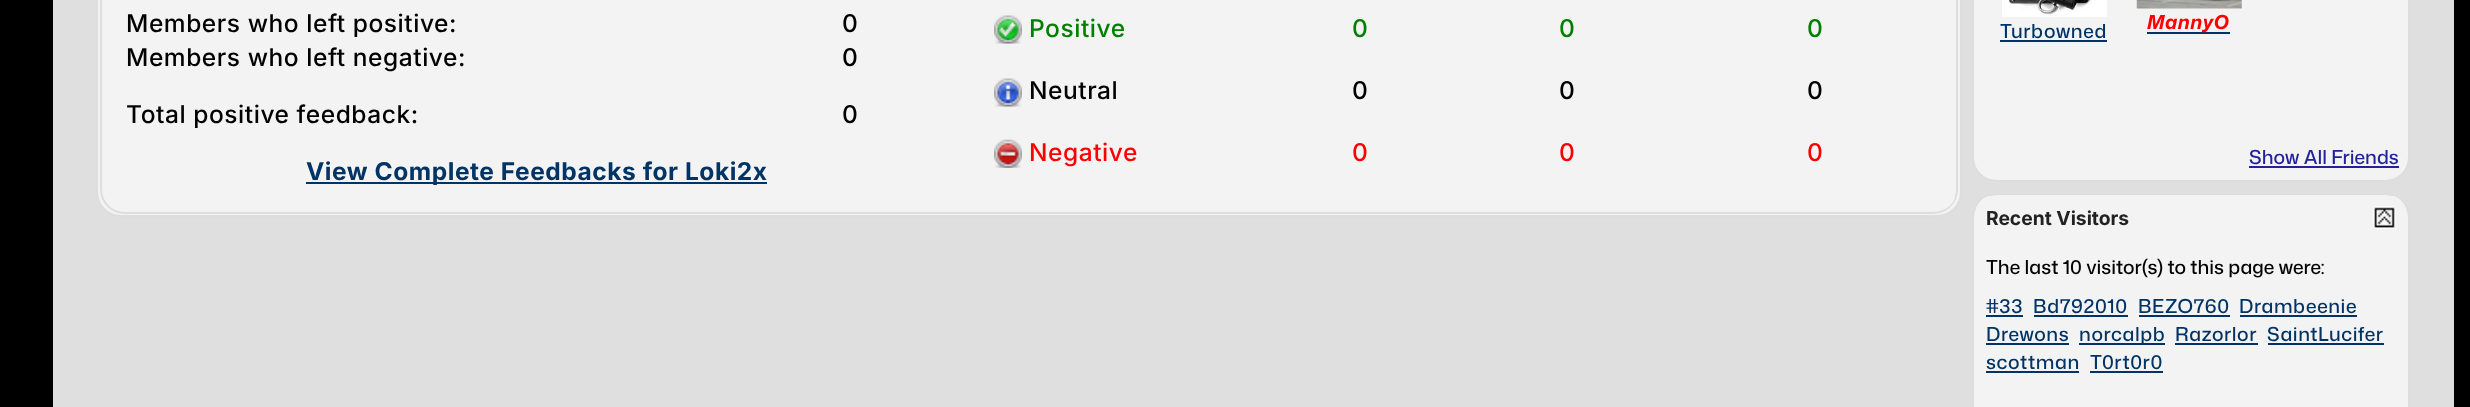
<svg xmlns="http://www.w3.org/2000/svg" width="2470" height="407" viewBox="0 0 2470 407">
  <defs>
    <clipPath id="clip1"><rect x="102" y="-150" width="1855" height="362" rx="23"/></clipPath>
    <clipPath id="clip2"><rect x="1974" y="-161" width="434" height="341" rx="23"/></clipPath>
    <clipPath id="clip3"><rect x="1974" y="194" width="434" height="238" rx="23"/></clipPath>
  </defs>
  <rect width="100%" height="100%" fill="#000"/>
  <path d="M53 0h2401v407H53z" fill="#dfdfdf"/>
  <rect x="97" y="-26" width="1864" height="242" rx="24" fill="#f3f3f3" stroke="#ddd" stroke-width="2"/>
  <rect x="101" y="-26" width="1856" height="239" rx="24" fill="none" stroke="#ddd" stroke-width="2"/>
  <g clip-path="url(#clip1)">
    <path d="M103 0h867v210H103z" fill="#f3f3f3"/>
  </g>
  <path d="M306 182h461v2H306z" fill="#036"/>
  <g clip-path="url(#clip1)">
    <path d="M971 0h984v210H971z" fill="#f3f3f3"/>
  </g>
  <image x="994" y="15" width="28" height="29" href="img/1.png"/>
  <image x="994" y="78" width="28" height="29" href="img/2.png"/>
  <image x="994" y="139" width="28" height="29" href="img/3.png"/>
  <rect x="1973" y="-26" width="436" height="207" rx="24" fill="#f3f3f3" stroke="#ddd" stroke-width="2"/>
  <image x="2002" y="0" width="105" height="17" href="img/4.png"/>
  <path d="M2000 40h107v2H2000z" fill="#036"/>
  <image x="2136" y="0" width="106" height="9" href="img/5.png"/>
  <path d="M2147 32h83v2H2147z" fill="#036"/>
  <g clip-path="url(#clip2)">
    <path d="M1976 137h430v42H1976z" fill="#f3f3f3"/>
  </g>
  <path d="M2249 166h150v2H2249z" fill="#22229c"/>
  <rect x="1973" y="194" width="436" height="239" rx="24" fill="#f3f3f3" stroke="#ddd" stroke-width="2"/>
  <g clip-path="url(#clip3)">
    <path d="M1976 196h430v46H1976z" fill="#f3f3f3"/>
  </g>
  <image x="2373" y="206" width="23" height="23" href="img/6.png"/>
  <path d="M1986 315h37v2H1986z" fill="#036"/>
  <path d="M2034 315h94v2H2034z" fill="#036"/>
  <path d="M2139 315h91v2H2139z" fill="#036"/>
  <path d="M2240 315h117v2H2240z" fill="#036"/>
  <path d="M1986 343h83v2H1986z" fill="#036"/>
  <path d="M2079 343h86v2H2079z" fill="#036"/>
  <path d="M2175 343h83v2H2175z" fill="#036"/>
  <path d="M2268 343h116v2H2268z" fill="#036"/>
  <path d="M1986 371h93v2H1986z" fill="#036"/>
  <path d="M2090 371h73v2H2090z" fill="#036"/>
  <g font-family="Inter" font-size="24.5" font-weight="500" letter-spacing="0.55" fill="#000">
    <text x="126" y="32">Members who left positive:</text>
    <text x="126" y="66">Members who left negative:</text>
    <text x="842" y="32">0</text>
    <text x="842" y="66">0</text>
    <text x="126" y="123">Total positive feedback:</text>
    <text x="842" y="123">0</text>
  </g>
  <text x="306" y="180" font-family="Inter" font-size="24.5" font-weight="bold" letter-spacing="0.55" fill="#036">View Complete Feedbacks for Loki2x</text>
  <g font-family="Inter" font-size="24.5" font-weight="500" letter-spacing="0.55" fill="#008000">
    <text x="1029" y="37">Positive</text>
    <text x="1352" y="37">0</text>
    <text x="1559" y="37">0</text>
    <text x="1807" y="37">0</text>
  </g>
  <g font-family="Inter" font-size="24.5" font-weight="500" letter-spacing="0.55" fill="#000">
    <text x="1029" y="99">Neutral</text>
    <text x="1352" y="99">0</text>
    <text x="1559" y="99">0</text>
    <text x="1807" y="99">0</text>
  </g>
  <g font-family="Inter" font-size="24.5" font-weight="500" letter-spacing="0.55" fill="#f00">
    <text x="1029" y="161">Negative</text>
    <text x="1352" y="161">0</text>
    <text x="1559" y="161">0</text>
    <text x="1807" y="161">0</text>
  </g>
  <text x="2000" y="38" font-family="Mona Sans" font-size="19.25" font-weight="500" letter-spacing="0.55" fill="#036">Turbowned</text>
  <text x="2147" y="29" font-family="Mona Sans" font-size="19.25" font-weight="bold" font-style="italic" letter-spacing="0.55" fill="#f00">MannyO</text>
  <text x="2249" y="164" font-family="Mona Sans" font-size="19.25" font-weight="500" fill="#22229c">Show All Friends</text>
  <text x="1986" y="225" font-family="Inter" font-size="19.25" font-weight="bold" fill="#222">Recent Visitors</text>
  <text x="1986" y="274" font-family="Mona Sans" font-size="19.25" font-weight="500" fill="#000">The last 10 visitor(s) to this page were:</text>
  <g font-family="Mona Sans" font-size="19.25" font-weight="500" letter-spacing="0.55" fill="#036">
    <text x="1986" y="313">#33</text>
    <text x="2033" y="313">Bd792010</text>
    <text x="2138" y="313">BEZO760</text>
    <text x="2239" y="313">Drambeenie</text>
    <text x="1986" y="341">Drewons</text>
    <text x="2079" y="341">norcalpb</text>
    <text x="2175" y="341">Razorlor</text>
    <text x="2267" y="341">SaintLucifer</text>
    <text x="1986" y="369">scottman</text>
    <text x="2090" y="369">T0rt0r0</text>
  </g>
</svg>
